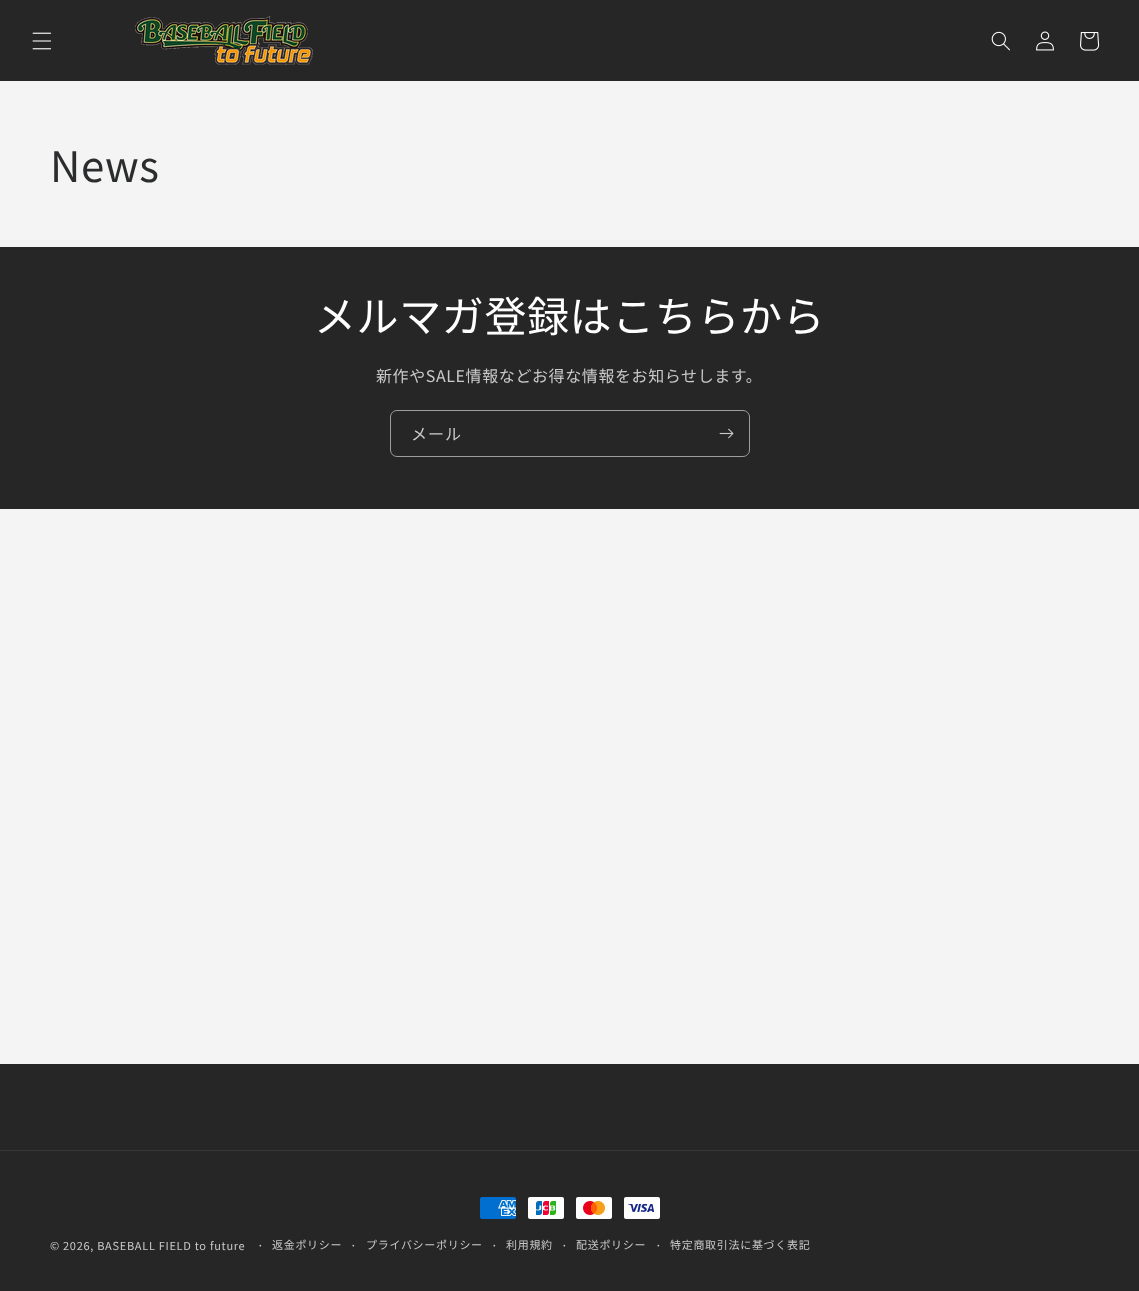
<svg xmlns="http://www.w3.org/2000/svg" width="1139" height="1291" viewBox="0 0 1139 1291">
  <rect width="100%" height="100%" fill="#f4f4f4"/>
  <path d="M0 0h1139v81H0z" fill="#262626"/>
  <image x="32" y="32" width="20" height="18" href="img/1.png"/>
  <image x="135" y="16" width="178" height="49" href="img/2.png"/>
  <image x="991" y="31" width="19" height="20" href="img/3.png"/>
  <image x="1036" y="31" width="18" height="20" href="img/4.png"/>
  <image x="1080" y="32" width="20" height="19" href="img/5.png"/>
  <path d="M0 247h1139v262H0z" fill="#262626"/>
  <rect x="390.5" y="410.5" width="359" height="46" rx="6.5" fill="none" stroke="#9d9d9d"/>
  <image x="719" y="428" width="15" height="11" href="img/6.png"/>
  <path d="M0 1064h1139v227H0z" fill="#262626"/>
  <path d="M0 1150h1139v1H0z" fill="#373737"/>
  <image x="480" y="1197" width="36" height="22" href="img/7.png"/>
  <image x="528" y="1197" width="36" height="22" href="img/8.png"/>
  <image x="576" y="1197" width="36" height="22" href="img/9.png"/>
  <image x="624" y="1197" width="36" height="22" href="img/10.png"/>
  <text x="50" y="182" font-family="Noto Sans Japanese" font-size="42" letter-spacing="0.6" fill="#2b2c2d">News</text>
  <text x="314" y="332" font-family="Noto Sans Japanese" font-size="42" letter-spacing="0.6" fill="#fff">メルマガ登録はこちらから</text>
  <text x="376" y="382" font-family="Noto Sans Japanese" font-size="16" letter-spacing="0.6" fill="#c9c9c9">新作やSALE情報などお得な情報をお知らせします。</text>
  <text x="411" y="440" font-family="Noto Sans Japanese" font-size="16" letter-spacing="1" fill="#c9c9c9">メール</text>
  <text x="50" y="1250" font-family="Noto Sans Japanese" font-size="11" letter-spacing="0.7" fill="#c9c9c9">© 2026, BASEBALL FIELD to future</text>
  <text x="257" y="1250" font-family="Noto Sans Japanese" font-size="12" letter-spacing="0.7" fill="#c9c9c9">·</text>
  <text x="272" y="1249" font-family="Noto Sans Japanese" font-size="11" letter-spacing="0.7" fill="#c9c9c9">返金ポリシー</text>
  <text x="350" y="1250" font-family="Noto Sans Japanese" font-size="12" letter-spacing="0.7" fill="#c9c9c9">·</text>
  <text x="366" y="1249" font-family="Noto Sans Japanese" font-size="11" letter-spacing="0.7" fill="#c9c9c9">プライバシーポリシー</text>
  <text x="491" y="1250" font-family="Noto Sans Japanese" font-size="12" letter-spacing="0.7" fill="#c9c9c9">·</text>
  <text x="506" y="1249" font-family="Noto Sans Japanese" font-size="11" letter-spacing="0.7" fill="#c9c9c9">利用規約</text>
  <text x="561" y="1250" font-family="Noto Sans Japanese" font-size="12" letter-spacing="0.7" fill="#c9c9c9">·</text>
  <text x="576" y="1249" font-family="Noto Sans Japanese" font-size="11" letter-spacing="0.7" fill="#c9c9c9">配送ポリシー</text>
  <text x="655" y="1250" font-family="Noto Sans Japanese" font-size="12" letter-spacing="0.7" fill="#c9c9c9">·</text>
  <text x="670" y="1249" font-family="Noto Sans Japanese" font-size="11" letter-spacing="0.7" fill="#c9c9c9">特定商取引法に基づく表記</text>
</svg>
